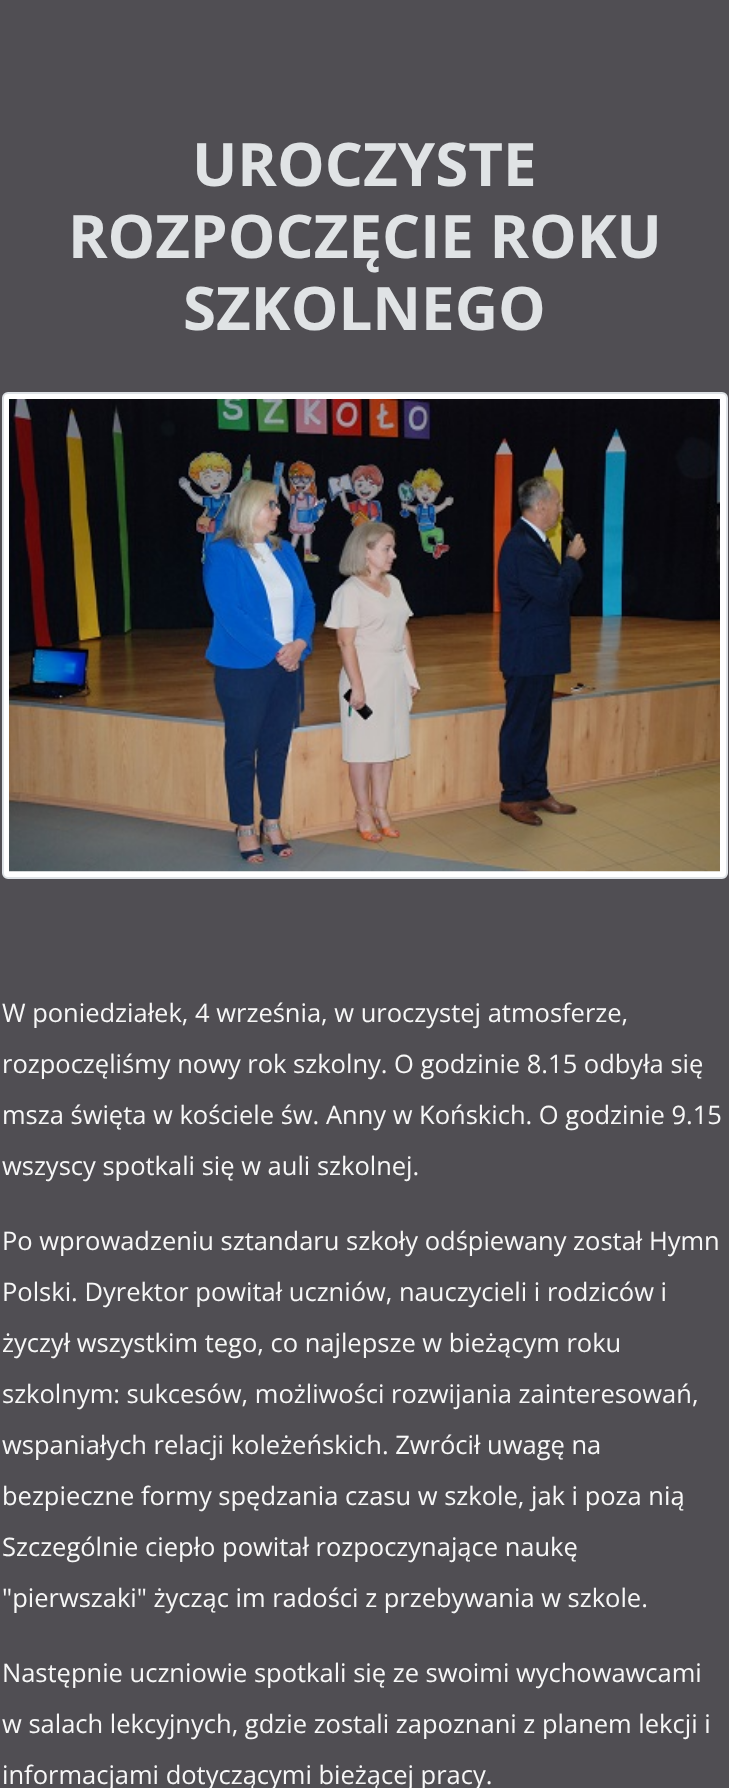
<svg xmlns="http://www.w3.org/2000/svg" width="729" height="1788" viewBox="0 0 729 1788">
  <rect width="100%" height="100%" fill="#504e53"/>
  <rect x="3" y="393" width="724" height="485" rx="5" fill="#fff" stroke="#dee2e6" stroke-width="2"/>
  <image x="9" y="399" width="711" height="473" href="img/1.png"/>
  <g font-family="Open Sans" font-size="60" font-weight="bold" fill="#e0e3e5">
    <text x="192" y="186">UROCZYSTE</text>
    <text x="68" y="258">ROZPOCZĘCIE ROKU</text>
    <text x="183" y="330">SZKOLNEGO</text>
  </g>
  <g font-family="Open Sans" font-size="25.5" fill="#f7f7f7">
    <text x="2" y="1022">W poniedziałek, 4 września, w uroczystej atmosferze,</text>
    <text x="2" y="1073">rozpoczęliśmy nowy rok szkolny. O godzinie 8.15 odbyła się</text>
    <text x="2" y="1124">msza święta w kościele św. Anny w Końskich. O godzinie 9.15</text>
    <text x="2" y="1175">wszyscy spotkali się w auli szkolnej.</text>
    <text x="2" y="1250">Po wprowadzeniu sztandaru szkoły odśpiewany został Hymn</text>
    <text x="2" y="1301">Polski. Dyrektor powitał uczniów, nauczycieli i rodziców i</text>
    <text x="2" y="1352">życzył wszystkim tego, co najlepsze w bieżącym roku</text>
    <text x="2" y="1403">szkolnym: sukcesów, możliwości rozwijania zainteresowań,</text>
    <text x="2" y="1454">wspaniałych relacji koleżeńskich. Zwrócił uwagę na</text>
    <text x="2" y="1505">bezpieczne formy spędzania czasu w szkole, jak i poza nią</text>
    <text x="2" y="1556">Szczególnie ciepło powitał rozpoczynające naukę</text>
    <text x="2" y="1607">"pierwszaki" życząc im radości z przebywania w szkole.</text>
    <text x="2" y="1682">Następnie uczniowie spotkali się ze swoimi wychowawcami</text>
    <text x="2" y="1733">w salach lekcyjnych, gdzie zostali zapoznani z planem lekcji i</text>
    <text x="2" y="1784">informacjami dotyczącymi bieżącej pracy.</text>
  </g>
</svg>
